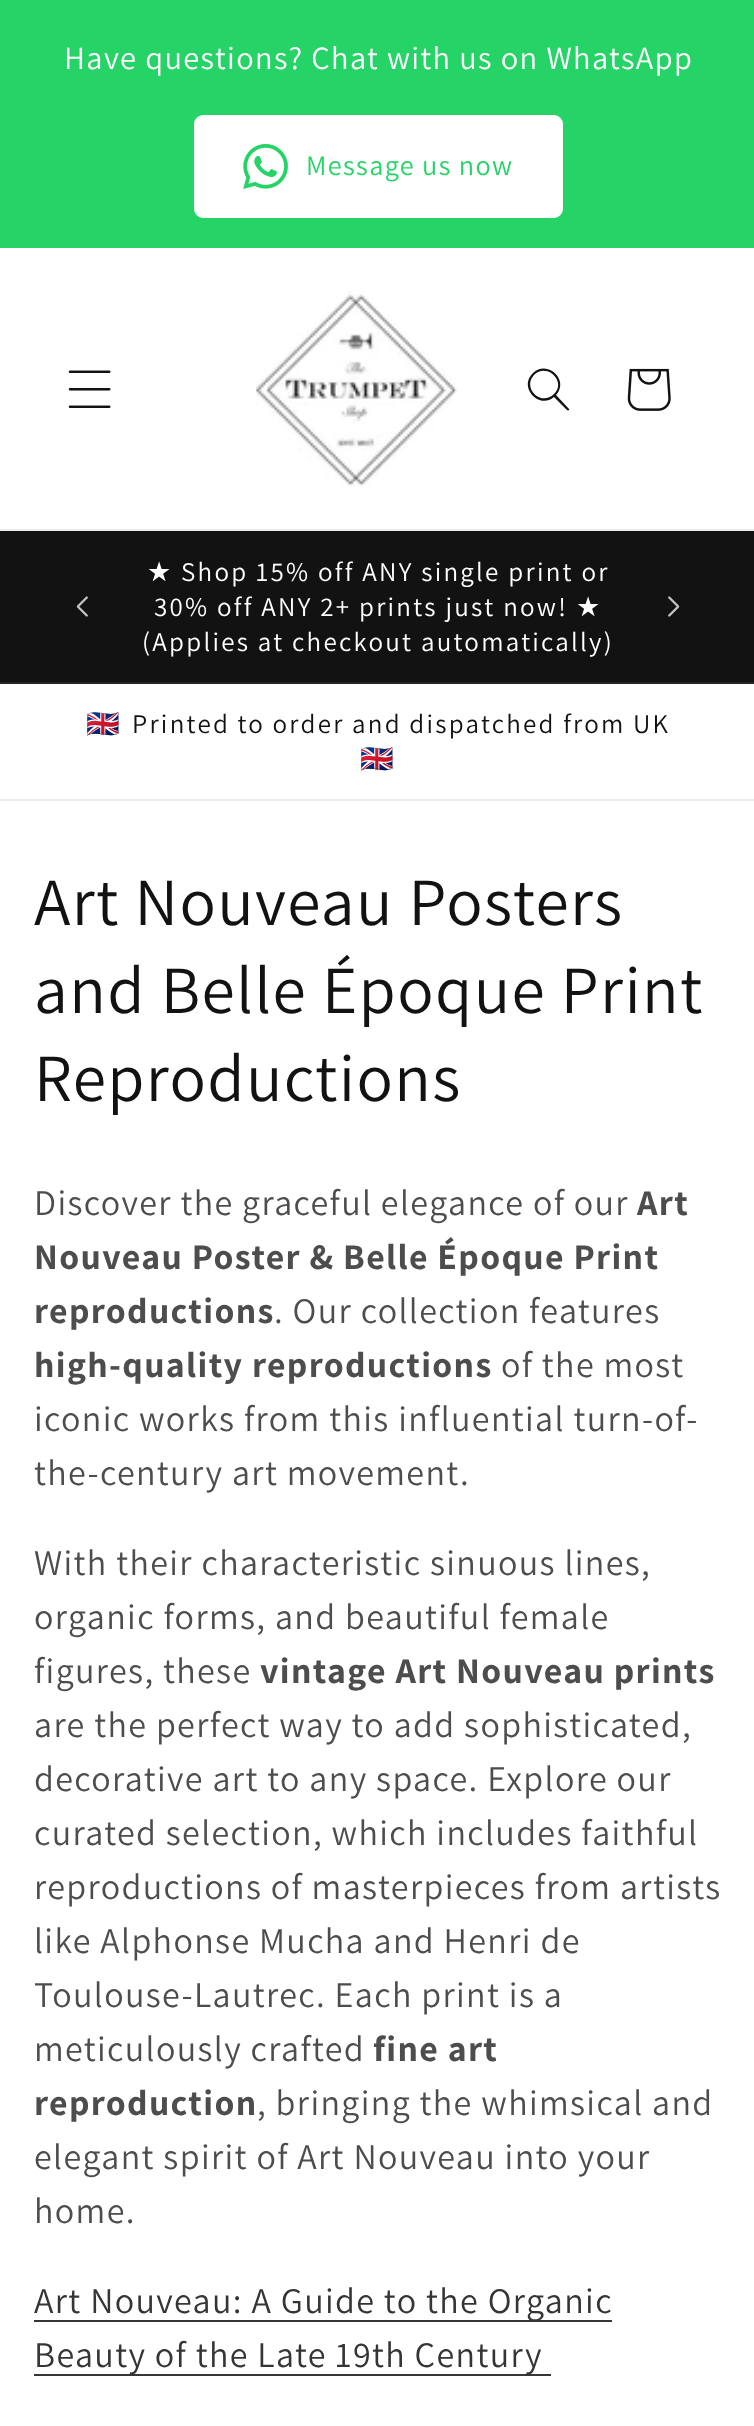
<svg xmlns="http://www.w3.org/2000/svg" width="754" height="2426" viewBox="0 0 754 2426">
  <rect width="100%" height="100%" fill="#fff"/>
  <path d="M0 0h754v248H0z" fill="#25d366"/>
  <rect x="196.5" y="117.5" width="364" height="98" rx="6.5" fill="#fff" stroke="#fff" stroke-width="5"/>
  <image x="243" y="144" width="45" height="45" href="img/1.png"/>
  <path d="M0 529h754v2H0z" fill="#ececec"/>
  <image x="68" y="370" width="43" height="38" href="img/2.png"/>
  <image x="255" y="291" width="202" height="196" href="img/3.png"/>
  <path d="M554 394C541 407 522 388 534 375C547 362 567 382 554 394M554 397C539 410 518 387 533 373C547 359 570 380 556 395L569 409C570 410 568 411 567 410Z" fill="#121212" fill-rule="evenodd"/>
  <image x="627" y="368" width="44" height="43" href="img/4.png"/>
  <path d="M0 531h754v151H0z" fill="#121212"/>
  <path d="M0 682h754v2H0z" fill="#252525"/>
  <image x="76" y="596" width="12" height="21" href="img/5.png"/>
  <image x="668" y="596" width="12" height="21" href="img/6.png"/>
  <path d="M0 799h754v2H0z" fill="#ececec"/>
  <path d="M34 2320h578v2H34z" fill="#363636"/>
  <path d="M34 2374h517v2H34z" fill="#363636"/>
  <text x="64" y="69" font-family="Assistant" font-size="32.4" letter-spacing="1.35" fill="#fff">Have questions? Chat with us on WhatsApp</text>
  <text x="306" y="175" font-family="Assistant" font-size="28.25" letter-spacing="1.35" fill="#25d366">Message us now</text>
  <text x="147" y="581" font-family="DejaVu Sans" font-size="27" letter-spacing="2.25" fill="#fff">★</text>
  <g font-family="Assistant" font-size="27" letter-spacing="2.25" fill="#fff">
    <text x="181" y="581">Shop 15% off ANY single print or</text>
    <text x="154" y="616">30% off ANY 2+ prints just now!</text>
  </g>
  <text x="576" y="616" font-family="DejaVu Sans" font-size="27" letter-spacing="2.25" fill="#fff">★</text>
  <text x="142" y="651" font-family="Assistant" font-size="27" letter-spacing="2.25" fill="#fff">(Applies at checkout automatically)</text>
  <text x="86" y="733" font-family="Noto Color Emoji" font-size="27" letter-spacing="2.25" fill="#121212">🇬🇧</text>
  <text x="132" y="733" word-spacing="-0.25" font-family="Assistant" font-size="27" letter-spacing="2.25" fill="#121212">Printed to order and dispatched from UK</text>
  <text x="360" y="768" font-family="Noto Color Emoji" font-size="27" letter-spacing="2.25" fill="#121212">🇬🇧</text>
  <g font-family="Assistant" font-size="67.5" letter-spacing="1.35" fill="#121212">
    <text x="34" y="925">Art Nouveau Posters</text>
    <text x="34" y="1013">and Belle Époque Print</text>
    <text x="34" y="1101">Reproductions</text>
  </g>
  <text x="34" y="1215" font-family="Assistant" font-size="36" letter-spacing="1.35" fill="#4d4d4d">Discover the graceful elegance of our</text>
  <g font-family="Assistant" font-size="36" font-weight="bold" letter-spacing="1.35" fill="#4d4d4d">
    <text x="637" y="1215">Art</text>
    <text x="34" y="1269">Nouveau Poster &amp; Belle Époque Print</text>
    <text x="34" y="1323">reproductions</text>
  </g>
  <text x="274" y="1323" font-family="Assistant" font-size="36" letter-spacing="1.35" fill="#4d4d4d">. Our collection features</text>
  <text x="34" y="1377" font-family="Assistant" font-size="36" font-weight="bold" letter-spacing="1.35" fill="#4d4d4d">high-quality reproductions</text>
  <g font-family="Assistant" font-size="36" letter-spacing="1.35" fill="#4d4d4d">
    <text x="501" y="1377">of the most</text>
    <text x="34" y="1431">iconic works from this influential turn-of-</text>
    <text x="34" y="1485">the-century art movement.</text>
    <text x="34" y="1575">With their characteristic sinuous lines,</text>
    <text x="34" y="1629">organic forms, and beautiful female</text>
    <text x="34" y="1683">figures, these</text>
  </g>
  <text x="260" y="1683" font-family="Assistant" font-size="36" font-weight="bold" letter-spacing="1.35" fill="#4d4d4d">vintage Art Nouveau prints</text>
  <g font-family="Assistant" font-size="36" letter-spacing="1.35" fill="#4d4d4d">
    <text x="34" y="1737">are the perfect way to add sophisticated,</text>
    <text x="34" y="1791">decorative art to any space. Explore our</text>
    <text x="34" y="1845">curated selection, which includes faithful</text>
    <text x="34" y="1899">reproductions of masterpieces from artists</text>
    <text x="34" y="1953">like Alphonse Mucha and Henri de</text>
    <text x="34" y="2007">Toulouse-Lautrec. Each print is a</text>
    <text x="34" y="2061">meticulously crafted</text>
  </g>
  <g font-family="Assistant" font-size="36" font-weight="bold" letter-spacing="1.35" fill="#4d4d4d">
    <text x="373" y="2061">fine art</text>
    <text x="34" y="2115">reproduction</text>
  </g>
  <g font-family="Assistant" font-size="36" letter-spacing="1.35" fill="#4d4d4d">
    <text x="257" y="2115">, bringing the whimsical and</text>
    <text x="34" y="2169">elegant spirit of Art Nouveau into your</text>
    <text x="34" y="2223">home.</text>
  </g>
  <g font-family="Assistant" font-size="36" letter-spacing="1.35" fill="#353535">
    <text x="34" y="2313">Art Nouveau: A Guide to the Organic</text>
    <text x="34" y="2367">Beauty of the Late 19th Century</text>
  </g>
</svg>
